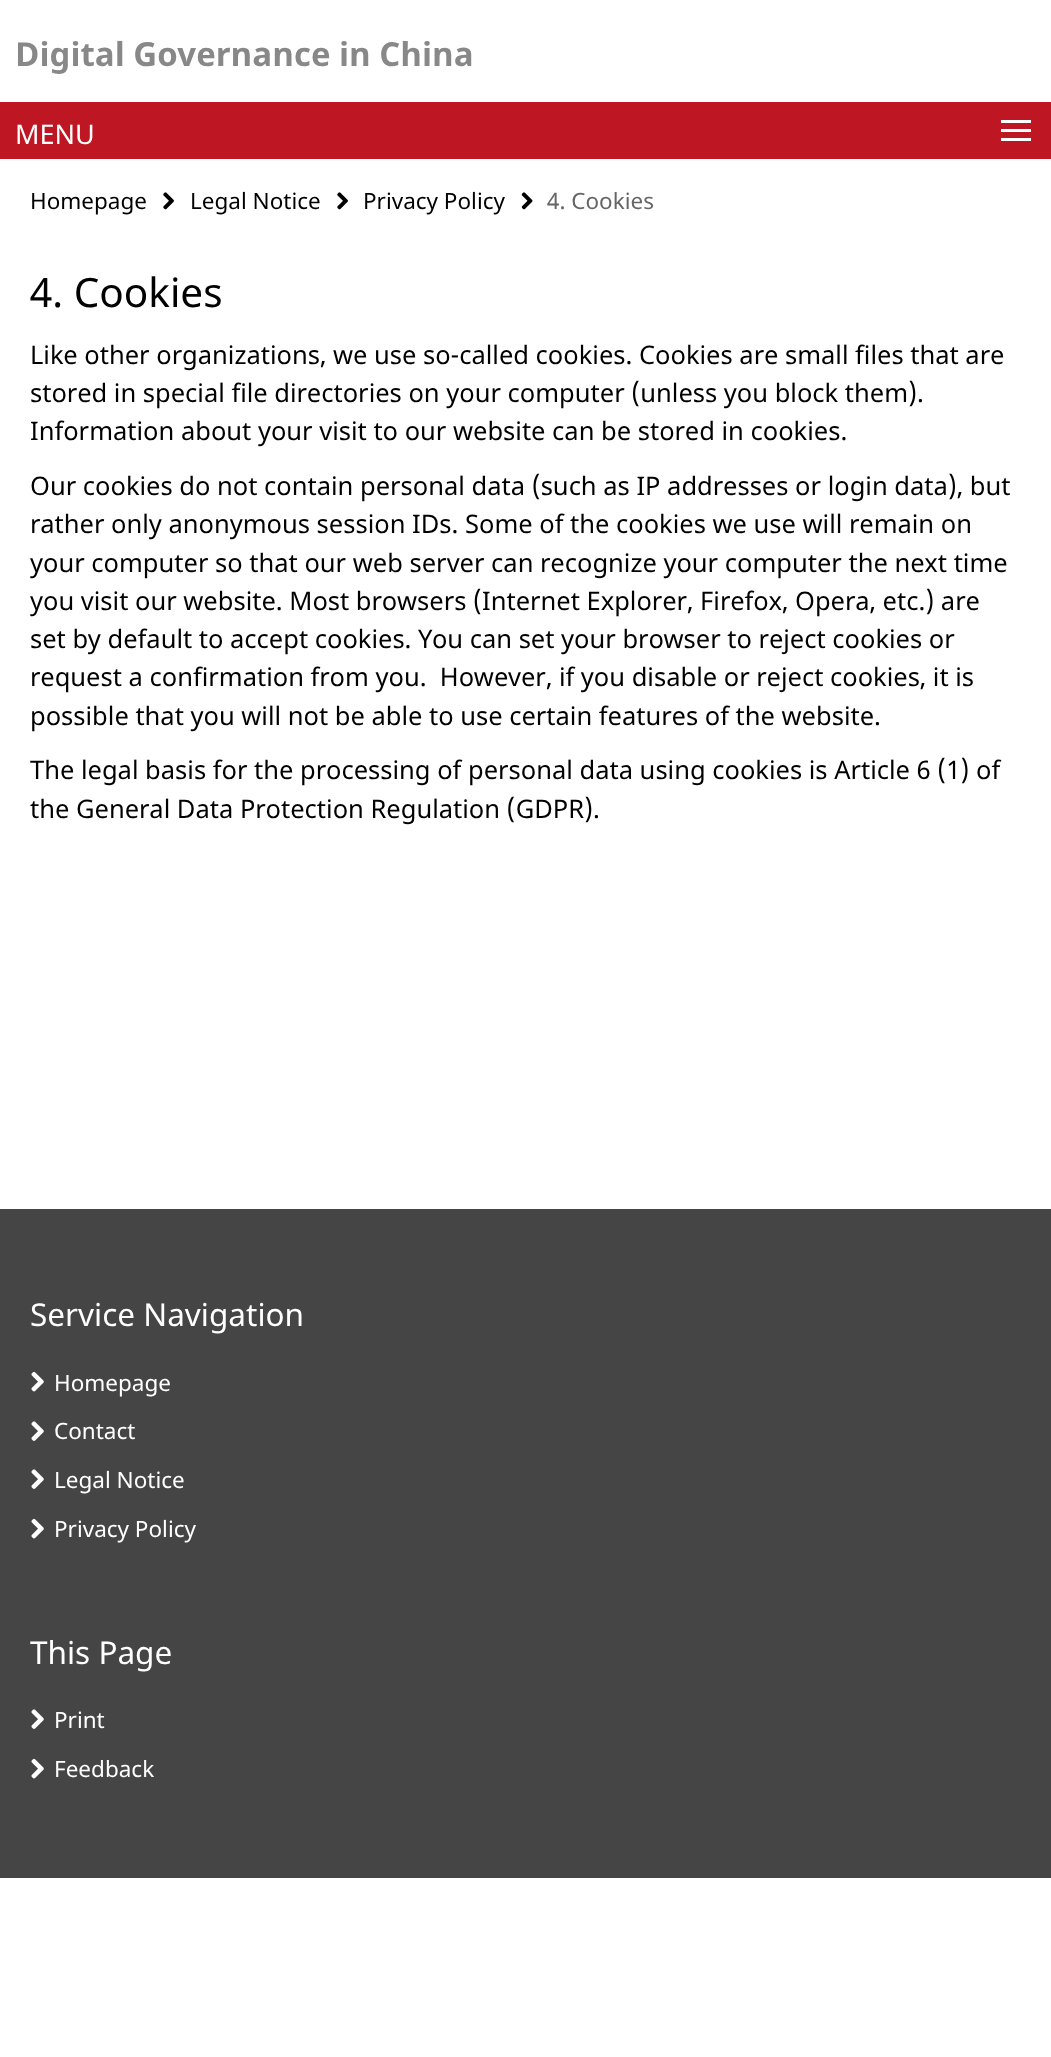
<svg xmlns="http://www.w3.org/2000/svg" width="1051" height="2057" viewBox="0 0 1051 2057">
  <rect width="100%" height="100%" fill="#fff"/>
  <path d="M0 102h1051v57H0z" fill="#be1622"/>
  <path d="M1001 120h30v3H1001z" fill="#fff"/>
  <path d="M1001 129h30v3H1001z" fill="#fff"/>
  <path d="M1001 138h30v3H1001z" fill="#fff"/>
  <image x="163" y="192" width="11" height="18" href="img/1.png"/>
  <image x="337" y="192" width="11" height="18" href="img/1.png"/>
  <image x="521" y="192" width="12" height="18" href="img/2.png"/>
  <path d="M0 1209h1051v669H0z" fill="#454545"/>
  <image x="31" y="1371" width="13" height="21" href="img/3.png"/>
  <image x="31" y="1421" width="13" height="20" href="img/4.png"/>
  <image x="31" y="1469" width="13" height="20" href="img/4.png"/>
  <image x="31" y="1518" width="13" height="21" href="img/3.png"/>
  <image x="31" y="1709" width="13" height="20" href="img/4.png"/>
  <image x="31" y="1758" width="13" height="21" href="img/3.png"/>
  <text x="15" y="66" font-family="Noto Sans" font-size="33" font-weight="bold" fill="#888">Digital Governance in China</text>
  <text x="15" y="144" font-family="Noto Sans" font-size="27" fill="#fff">MENU</text>
  <g font-family="Noto Sans" font-size="22.5" fill="#000">
    <text x="30" y="209">Homepage</text>
    <text x="190" y="209">Legal Notice</text>
    <text x="363" y="209">Privacy Policy</text>
  </g>
  <text x="547" y="209" font-family="Noto Sans" font-size="22.5" fill="#666">4. Cookies</text>
  <text x="30" y="307" font-family="Noto Sans" font-size="40.5" fill="#000">4. Cookies</text>
  <g font-family="Noto Sans" font-size="25.5" fill="#000">
    <text x="30" y="364">Like other organizations, we use so-called cookies. Cookies are small files that are</text>
    <text x="30" y="402">stored in special file directories on your computer (unless you block them).</text>
    <text x="30" y="440">Information about your visit to our website can be stored in cookies.</text>
    <text x="30" y="495">Our cookies do not contain personal data (such as IP addresses or login data), but</text>
    <text x="30" y="533">rather only anonymous session IDs. Some of the cookies we use will remain on</text>
    <text x="30" y="572">your computer so that our web server can recognize your computer the next time</text>
    <text x="30" y="610">you visit our website. Most browsers (Internet Explorer, Firefox, Opera, etc.) are</text>
    <text x="30" y="648">set by default to accept cookies. You can set your browser to reject cookies or</text>
    <text x="30" y="686" xml:space="preserve">request a confirmation from you.  However, if you disable or reject cookies, it is</text>
    <text x="30" y="725">possible that you will not be able to use certain features of the website.</text>
    <text x="30" y="779">The legal basis for the processing of personal data using cookies is Article 6 (1) of</text>
    <text x="30" y="818">the General Data Protection Regulation (GDPR).</text>
  </g>
  <text x="30" y="1326" font-family="Noto Sans" font-size="31.5" fill="#fff">Service Navigation</text>
  <g font-family="Noto Sans" font-size="22.5" fill="#fff">
    <text x="54" y="1391">Homepage</text>
    <text x="54" y="1439">Contact</text>
    <text x="54" y="1488">Legal Notice</text>
    <text x="54" y="1537">Privacy Policy</text>
  </g>
  <text x="30" y="1664" font-family="Noto Sans" font-size="31.5" fill="#fff">This Page</text>
  <g font-family="Noto Sans" font-size="22.5" fill="#fff">
    <text x="54" y="1728">Print</text>
    <text x="54" y="1777">Feedback</text>
  </g>
</svg>
